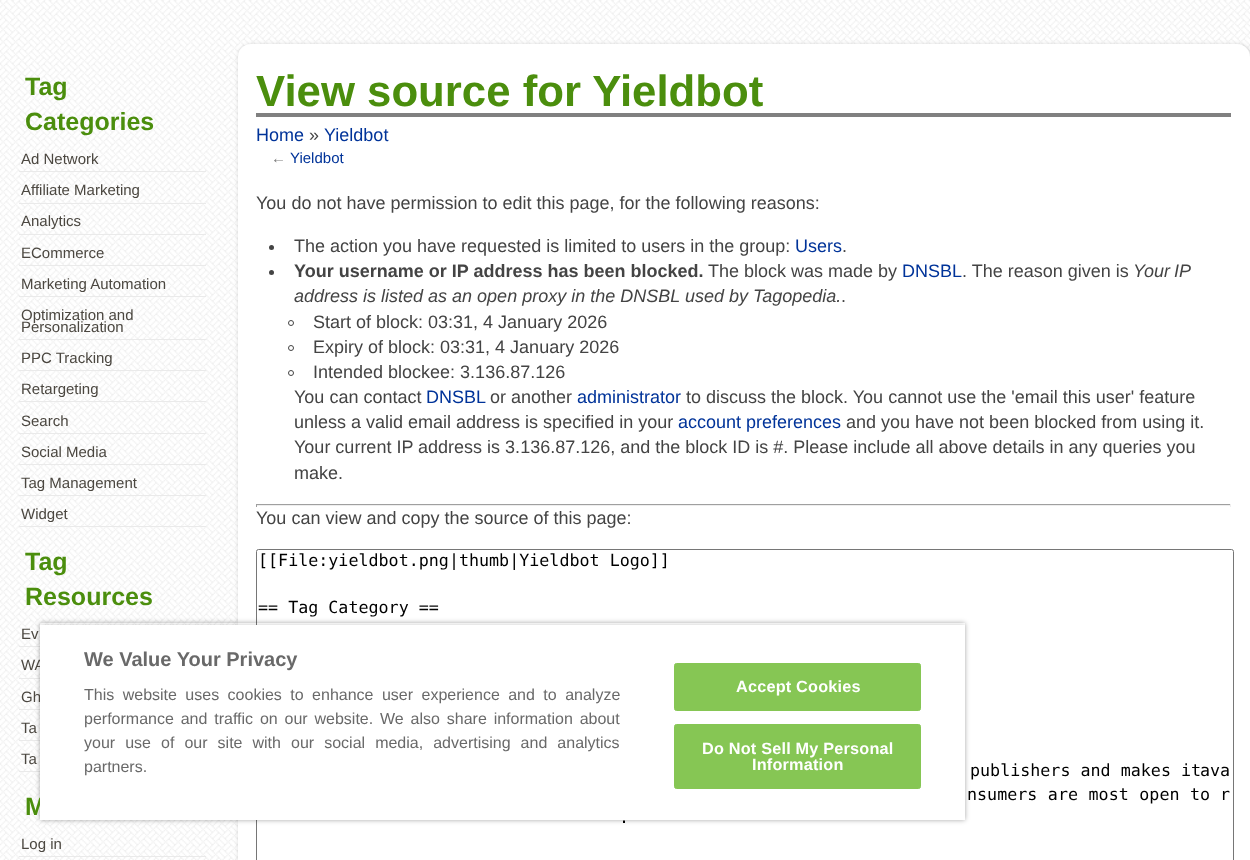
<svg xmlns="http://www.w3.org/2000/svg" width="1250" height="860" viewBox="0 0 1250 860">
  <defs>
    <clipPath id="clip1"><path d="M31 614H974V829H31ZM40 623H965V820H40Z" clip-rule="evenodd"/></clipPath>
    <clipPath id="clip2"><path d="M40 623h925v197H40z"/></clipPath>
  </defs>
  <rect width="100%" height="100%" fill="#fff"/>
  <image x="0" y="0" width="1250" height="860" href="img/1.png"/>
  <path d="M19 171h187v1H19z" fill="#eaeaea"/>
  <path d="M19 203h187v1H19z" fill="#eaeaea"/>
  <path d="M19 234h187v1H19z" fill="#eaeaea"/>
  <path d="M19 265h187v1H19z" fill="#eaeaea"/>
  <path d="M19 296h187v1H19z" fill="#eaeaea"/>
  <path d="M19 339h187v1H19z" fill="#eaeaea"/>
  <path d="M19 370h187v1H19z" fill="#eaeaea"/>
  <path d="M19 401h187v1H19z" fill="#eaeaea"/>
  <path d="M19 433h187v1H19z" fill="#eaeaea"/>
  <path d="M19 464h187v1H19z" fill="#eaeaea"/>
  <path d="M19 495h187v1H19z" fill="#eaeaea"/>
  <path d="M19 526h187v1H19z" fill="#eaeaea"/>
  <path d="M19 646h21v1H19z" fill="#eaeaea"/>
  <path d="M19 678h21v1H19z" fill="#eaeaea"/>
  <path d="M19 709h21v1H19z" fill="#eaeaea"/>
  <path d="M19 740h21v1H19z" fill="#eaeaea"/>
  <path d="M19 771h21v1H19z" fill="#eaeaea"/>
  <path d="M19 856h187v1H19z" fill="#eaeaea"/>
  <rect x="239" y="45" width="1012" height="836" rx="13" fill="#00000033" filter="blur(2.5px)"/>
  <rect x="238" y="44" width="1012" height="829" rx="13" fill="#fff"/>
  <path d="M256 113h975v4H256z" fill="#808080"/>
  <circle cx="271.5" cy="247.5" r="2.5" fill="#444"/>
  <circle cx="271.5" cy="272.5" r="2.5" fill="#444"/>
  <circle cx="291" cy="323" r="2.5" fill="none" stroke="#444"/>
  <circle cx="291" cy="348" r="2.5" fill="none" stroke="#444"/>
  <circle cx="291" cy="373" r="2.5" fill="none" stroke="#444"/>
  <path d="M256 504h975v1H256z" fill="#9f9f9f"/>
  <path d="M1230 504h1v3H1230z" fill="#eee"/>
  <path d="M256 505h975v1H256z" fill="#eee"/>
  <path d="M256 504h1v3H256z" fill="#9f9f9f"/>
  <rect x="256.5" y="549.5" width="977" height="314" rx="2" fill="none" stroke="#767676"/>
  <g clip-path="url(#clip1)">
    <path d="M40 623h925v197H40z" fill="#00000059" filter="blur(2.5px)"/>
  </g>
  <g clip-path="url(#clip2)">
    <path d="M40 625h925v195H40z" fill="#00000033" filter="blur(2.5px)"/>
  </g>
  <g font-family="Liberation Sans" font-size="25" font-weight="bold" fill="#4b8e0d">
    <text x="25" y="95">Tag</text>
    <text x="25" y="130">Categories</text>
  </g>
  <g font-family="Liberation Sans" font-size="15" fill="#4b4740">
    <text x="21" y="164">Ad Network</text>
    <text x="21" y="195">Affiliate Marketing</text>
    <text x="21" y="226">Analytics</text>
    <text x="21" y="258">ECommerce</text>
    <text x="21" y="289">Marketing Automation</text>
    <text x="21" y="320">Optimization and</text>
    <text x="21" y="332">Personalization</text>
    <text x="21" y="363">PPC Tracking</text>
    <text x="21" y="394">Retargeting</text>
    <text x="21" y="426">Search</text>
    <text x="21" y="457">Social Media</text>
    <text x="21" y="488">Tag Management</text>
    <text x="21" y="519">Widget</text>
  </g>
  <g font-family="Liberation Sans" font-size="25" font-weight="bold" fill="#4b8e0d">
    <text x="25" y="570">Tag</text>
    <text x="25" y="605">Resources</text>
  </g>
  <g font-family="Liberation Sans" font-size="15" fill="#4b4740">
    <text x="21" y="639">Ev</text>
    <text x="21" y="670">WA</text>
    <text x="21" y="702">Gh</text>
    <text x="21" y="733">Ta</text>
    <text x="21" y="764">Ta</text>
  </g>
  <text x="25" y="815" font-family="Liberation Sans" font-size="25" font-weight="bold" fill="#4b8e0d">M</text>
  <text x="21" y="849" font-family="Liberation Sans" font-size="15" fill="#4b4740">Log in</text>
  <text x="256" y="106" font-family="Liberation Sans" font-size="43.75" font-weight="bold" fill="#4b8e0d">View source for Yieldbot</text>
  <text x="256" y="141" font-family="Liberation Sans" font-size="18" fill="#039">Home</text>
  <text x="309" y="141" font-family="Liberation Sans" font-size="18" fill="#444">»</text>
  <text x="324" y="141" font-family="Liberation Sans" font-size="18" fill="#039">Yieldbot</text>
  <text x="271" y="163" font-family="Liberation Sans" font-size="15" fill="#7d7d7d">←</text>
  <text x="290" y="163" font-family="Liberation Sans" font-size="15" fill="#039">Yieldbot</text>
  <g font-family="Liberation Sans" font-size="18" fill="#444">
    <text x="256" y="209">You do not have permission to edit this page, for the following reasons:</text>
    <text x="294" y="252">The action you have requested is limited to users in the group:</text>
  </g>
  <text x="795" y="252" font-family="Liberation Sans" font-size="18" fill="#039">Users</text>
  <text x="842" y="252" font-family="Liberation Sans" font-size="18" fill="#444">.</text>
  <text x="294" y="277" font-family="Liberation Sans" font-size="18" font-weight="bold" fill="#444">Your username or IP address has been blocked.</text>
  <text x="708" y="277" font-family="Liberation Sans" font-size="18" fill="#444">The block was made by</text>
  <text x="902" y="277" font-family="Liberation Sans" font-size="18" fill="#039">DNSBL</text>
  <text x="962" y="277" font-family="Liberation Sans" font-size="18" fill="#444">. The reason given is</text>
  <g font-family="Liberation Sans" font-size="18" font-style="italic" fill="#444">
    <text x="1133" y="277" word-spacing="-1">Your IP</text>
    <text x="294" y="302">address is listed as an open proxy in the DNSBL used by Tagopedia.</text>
  </g>
  <g font-family="Liberation Sans" font-size="18" fill="#444">
    <text x="841" y="302">.</text>
    <text x="313" y="328">Start of block: 03:31, 4 January 2026</text>
    <text x="313" y="353">Expiry of block: 03:31, 4 January 2026</text>
    <text x="313" y="378">Intended blockee: 3.136.87.126</text>
    <text x="294" y="403">You can contact</text>
  </g>
  <text x="426" y="403" font-family="Liberation Sans" font-size="18" fill="#039">DNSBL</text>
  <text x="490" y="403" font-family="Liberation Sans" font-size="18" fill="#444">or another</text>
  <text x="577" y="403" font-family="Liberation Sans" font-size="18" fill="#039">administrator</text>
  <g font-family="Liberation Sans" font-size="18" fill="#444">
    <text x="686" y="403">to discuss the block. You cannot use the 'email this user' feature</text>
    <text x="294" y="428">unless a valid email address is specified in your</text>
  </g>
  <text x="678" y="428" font-family="Liberation Sans" font-size="18" fill="#039">account preferences</text>
  <g font-family="Liberation Sans" font-size="18" fill="#444">
    <text x="846" y="428">and you have not been blocked from using it.</text>
    <text x="294" y="453">Your current IP address is 3.136.87.126, and the block ID is #. Please include all above details in any queries you</text>
    <text x="294" y="479">make.</text>
    <text x="256" y="524">You can view and copy the source of this page:</text>
  </g>
  <g font-family="DejaVu Sans Mono" font-size="16.7" fill="#000">
    <text x="258" y="566">[[File:yieldbot.png|thumb|Yieldbot Logo]]</text>
    <text x="258" y="613">== Tag Category ==</text>
    <text x="970" y="776">publishers and makes it</text>
    <text x="1200" y="776">ava</text>
    <text x="967" y="800" word-spacing="0.5">nsumers are most open to</text>
    <text x="1220" y="800">r</text>
    <text x="619" y="823" word-spacing="180">.</text>
  </g>
  <path d="M40 625h925v195H40z" fill="#fff"/>
  <text x="84" y="666" font-family="Liberation Sans" font-size="20" font-weight="bold" fill="#696969">We Value Your Privacy</text>
  <g font-family="Liberation Sans" font-size="16" fill="#696969">
    <text x="84" y="700" word-spacing="4">This website uses cookies to enhance user experience and to analyze</text>
    <text x="84" y="724" word-spacing="2.4">performance and traffic on our website. We also share information about</text>
    <text x="84" y="748" word-spacing="5.6">your use of our site with our social media, advertising and analytics</text>
    <text x="84" y="772">partners.</text>
  </g>
  <rect x="674.5" y="663.5" width="246" height="47" rx="2" fill="#86c654" stroke="#86c654"/>
  <text x="736" y="692" font-family="Liberation Sans" font-size="16.25" font-weight="bold" letter-spacing="0.2" fill="#fff">Accept Cookies</text>
  <rect x="674.5" y="724.5" width="246" height="64" rx="2" fill="#86c654" stroke="#86c654"/>
  <g font-family="Liberation Sans" font-size="16.25" font-weight="bold" letter-spacing="0.2" fill="#fff">
    <text x="702" y="754">Do Not Sell My Personal</text>
    <text x="752" y="770">Information</text>
  </g>
</svg>
